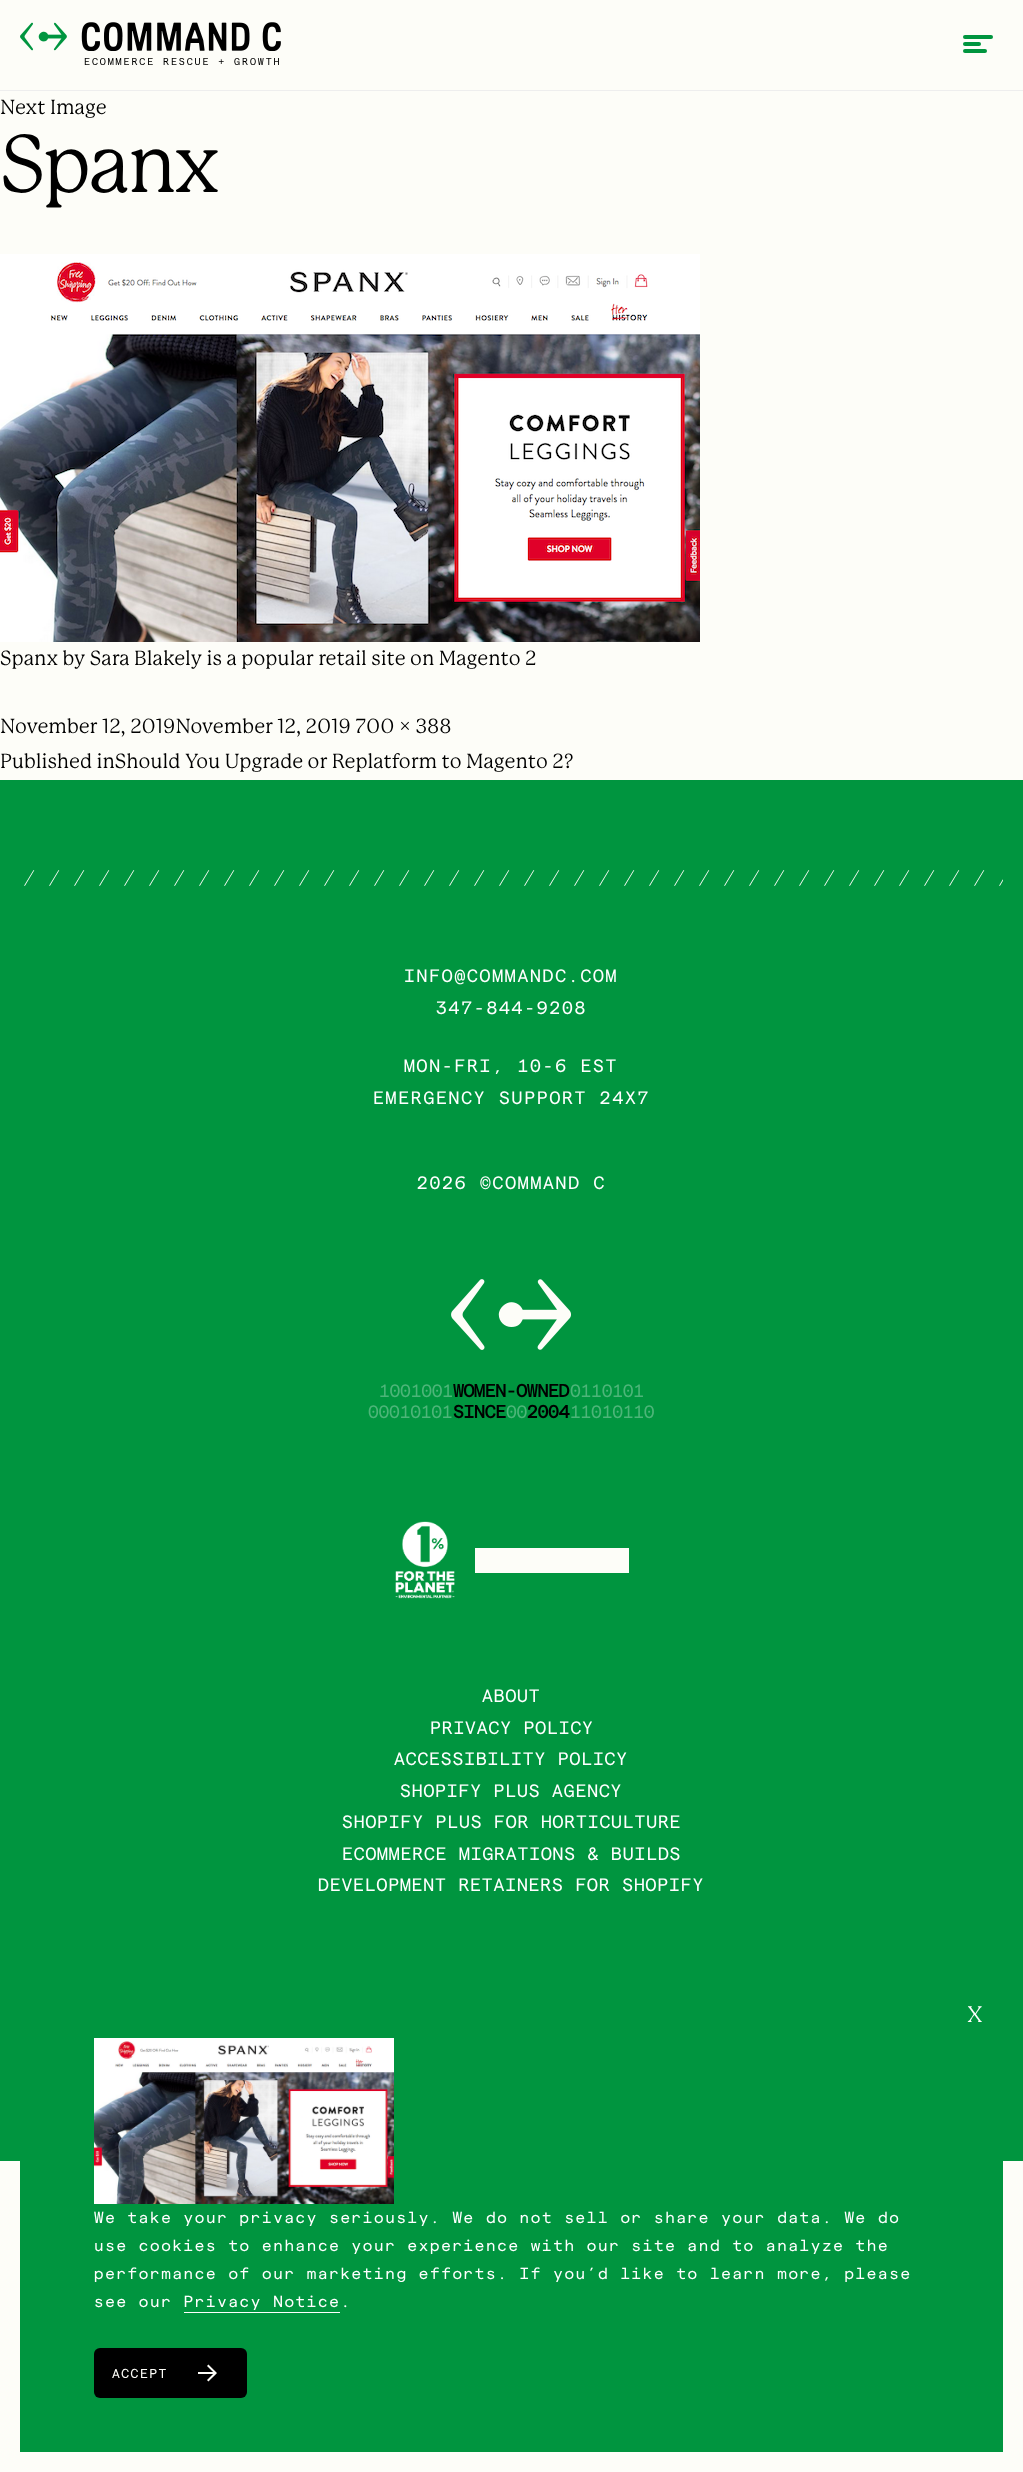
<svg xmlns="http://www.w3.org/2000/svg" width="1023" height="2472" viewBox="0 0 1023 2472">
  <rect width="100%" height="100%" fill="#fdfdf8"/>
  <path d="M0 90h1023v1H0z" fill="#eee"/>
  <rect x="963" y="35" width="30" height="4" rx="2" fill="#00953f"/>
  <rect x="963" y="42" width="18" height="4" rx="2" fill="#00953f"/>
  <rect x="963" y="49" width="24" height="4" rx="2" fill="#00953f"/>
  <image x="20" y="22" width="47" height="29" href="img/1.png"/>
  <image x="81" y="22" width="200" height="29" href="img/2.png"/>
  <image x="0" y="254" width="700" height="388" href="img/3.png"/>
  <path d="M0 780h1023v1381H0z" fill="#00953f"/>
  <image x="24" y="870" width="979" height="16" href="img/4.png"/>
  <image x="451" y="1279" width="120" height="71" href="img/5.png"/>
  <image x="395" y="1521" width="60" height="78" href="img/6.png"/>
  <path d="M475 1548h154v25H475z" fill="#fdfdf8"/>
  <path d="M20 2161h983v291H20z" fill="#00953f"/>
  <image x="94" y="2038" width="300" height="166" href="img/7.png"/>
  <path d="M184 2312h156v1H184z" fill="#fff"/>
  <rect x="94" y="2348" width="153" height="50" rx="6" fill="#000"/>
  <path d="M198 2372h16v2H198z" fill="#fdfdf8"/>
  <image x="207" y="2364" width="10" height="18" href="img/8.png"/>
  <text x="84" y="65" font-family="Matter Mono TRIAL" font-size="10" letter-spacing="1.9" fill="#000">ECOMMERCE RESCUE + GROWTH</text>
  <text x="0" y="114" font-family="'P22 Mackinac'" font-size="20" fill="#000">Next Image</text>
  <text x="0" y="192" font-family="'P22 Mackinac'" font-size="80" letter-spacing="-3" fill="#000">Spanx</text>
  <g font-family="'P22 Mackinac'" font-size="20" fill="#000">
    <text x="0" y="665">Spanx by Sara Blakely is a popular retail site on Magento 2</text>
    <text x="0" y="733">November 12, 2019November 12, 2019 700 × 388</text>
    <text x="0" y="768">Published inShould You Upgrade or Replatform to Magento 2?</text>
  </g>
  <g font-family="Matter Mono TRIAL" font-size="18" letter-spacing="1.8" fill="#fff">
    <text x="404" y="982">INFO@COMMANDC.COM</text>
    <text x="436" y="1014">347-844-9208</text>
    <text x="404" y="1072">MON-FRI, 10-6 EST</text>
    <text x="373" y="1104">EMERGENCY SUPPORT 24X7</text>
    <text x="417" y="1189">2026 ©COMMAND C</text>
  </g>
  <text x="379" y="1397" font-family="Matter Mono TRIAL" font-size="18" letter-spacing="-0.25" fill="#4db579">1001001</text>
  <text x="453" y="1397" font-family="Matter Mono TRIAL" font-size="18" font-weight="bold" letter-spacing="-0.25" fill="#000">WOMEN-OWNED</text>
  <g font-family="Matter Mono TRIAL" font-size="18" letter-spacing="-0.25" fill="#4db579">
    <text x="570" y="1397">0110101</text>
    <text x="368" y="1418">00010101</text>
  </g>
  <text x="453" y="1418" font-family="Matter Mono TRIAL" font-size="18" font-weight="bold" letter-spacing="-0.25" fill="#000">SINCE</text>
  <text x="506" y="1418" font-family="Matter Mono TRIAL" font-size="18" letter-spacing="-0.25" fill="#4db579">00</text>
  <text x="527" y="1418" font-family="Matter Mono TRIAL" font-size="18" font-weight="bold" letter-spacing="-0.25" fill="#000">2004</text>
  <text x="570" y="1418" font-family="Matter Mono TRIAL" font-size="18" letter-spacing="-0.25" fill="#4db579">11010110</text>
  <g font-family="Matter Mono TRIAL" font-size="18" letter-spacing="0.9" fill="#fff">
    <text x="482" y="1702">ABOUT</text>
    <text x="430" y="1734">PRIVACY POLICY</text>
    <text x="394" y="1765">ACCESSIBILITY POLICY</text>
    <text x="400" y="1797">SHOPIFY PLUS AGENCY</text>
    <text x="342" y="1828">SHOPIFY PLUS FOR HORTICULTURE</text>
    <text x="342" y="1860">ECOMMERCE MIGRATIONS &amp; BUILDS</text>
    <text x="318" y="1891">DEVELOPMENT RETAINERS FOR SHOPIFY</text>
  </g>
  <text x="967" y="2022" font-family="'P22 Mackinac'" font-size="22" fill="#fff">X</text>
  <g font-family="Matter Mono TRIAL" font-size="16" letter-spacing="1.6" fill="#fff">
    <text x="94" y="2223">We take your privacy seriously. We do not sell or share your data. We do</text>
    <text x="94" y="2251">use cookies to enhance your experience with our site and to analyze the</text>
    <text x="94" y="2279">performance of our marketing efforts. If you’d like to learn more, please</text>
    <text x="94" y="2307">see our Privacy Notice.</text>
  </g>
  <text x="112" y="2378" font-family="Matter Mono TRIAL" font-size="13" letter-spacing="1.5" fill="#fdfdf8">ACCEPT</text>
</svg>
